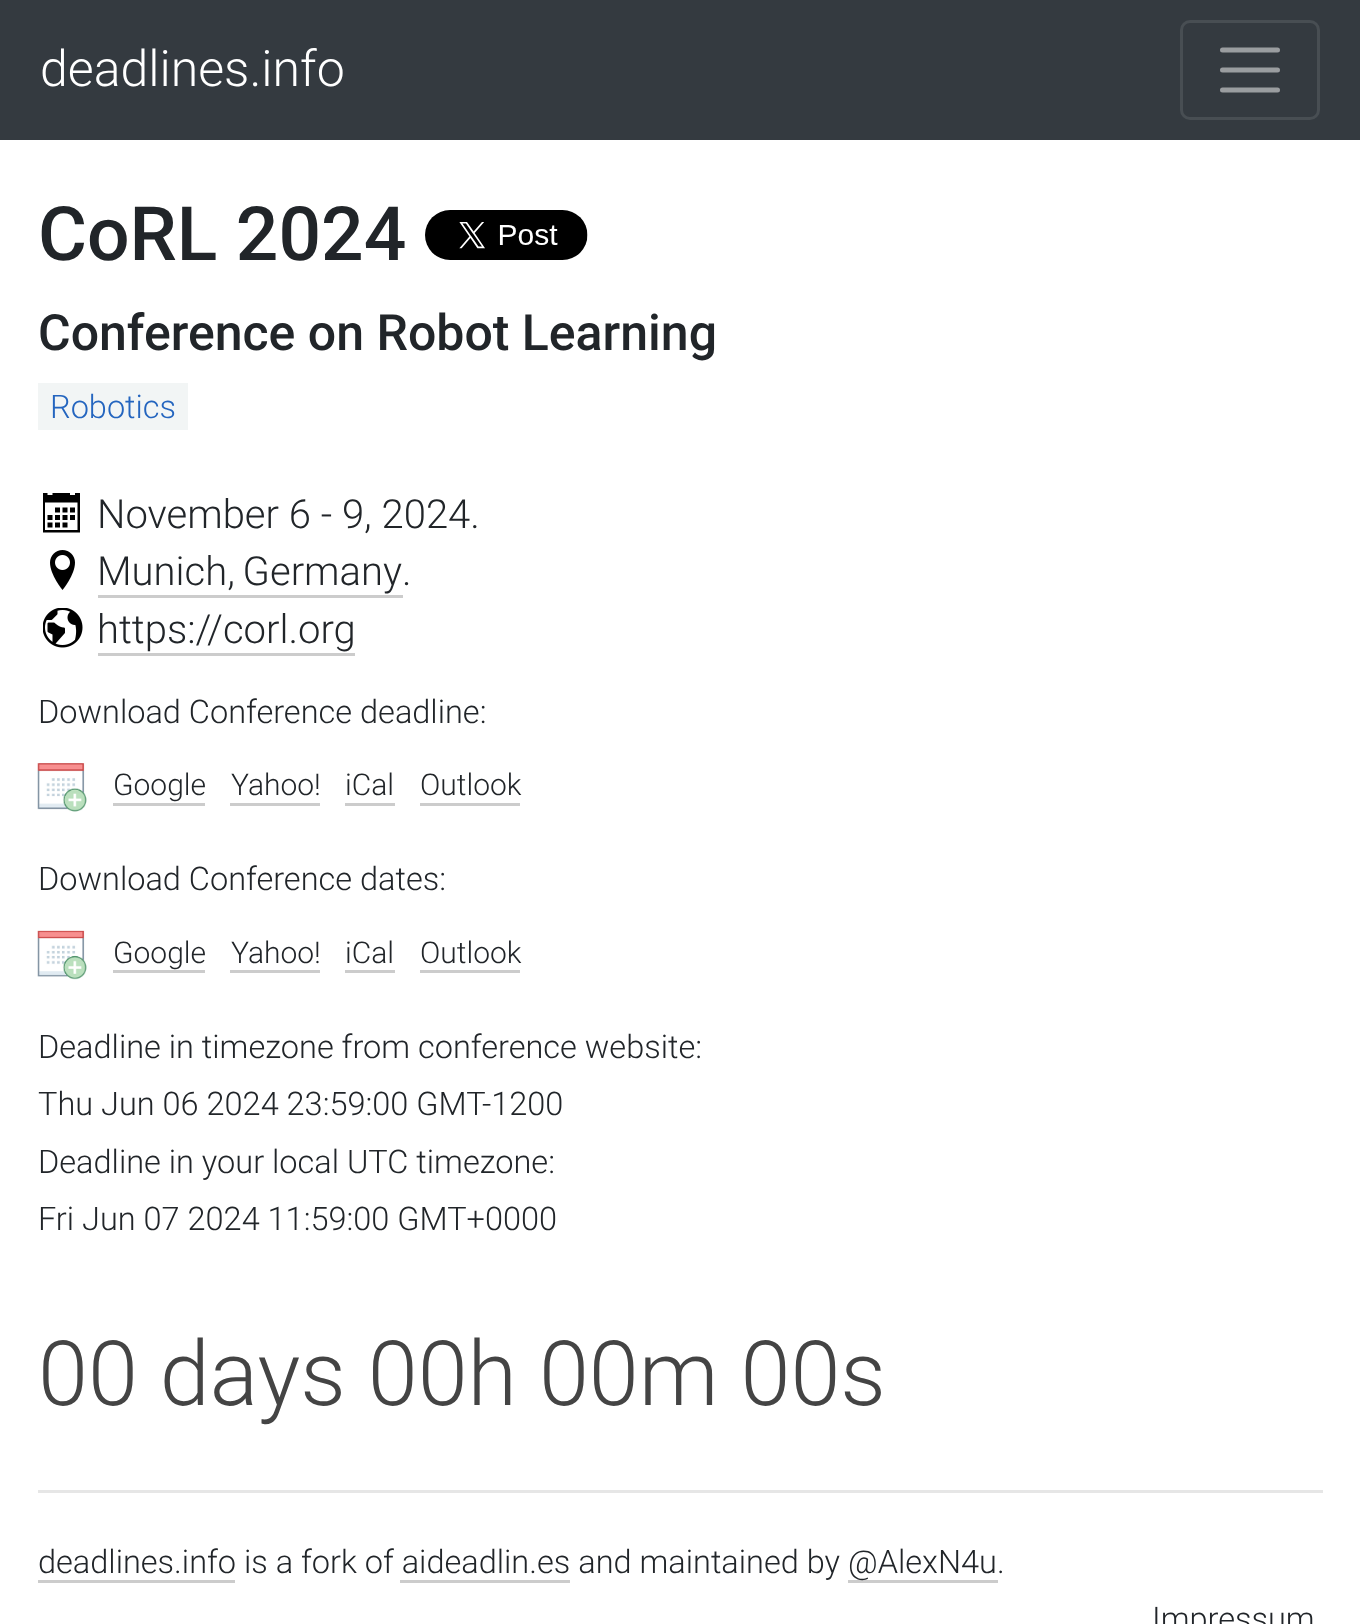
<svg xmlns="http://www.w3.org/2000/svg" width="1360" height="1624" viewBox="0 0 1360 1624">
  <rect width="100%" height="100%" fill="#fff"/>
  <path d="M0 0h1360v140H0z" fill="#343a40"/>
  <rect x="1181.5" y="21.5" width="137" height="97" rx="8.5" fill="none" stroke="#484e53" stroke-width="3"/>
  <path d="M1222.5 50H1277.5M1222.5 70H1277.5M1222.5 90H1277.5" fill="none" stroke="#9a9da0" stroke-width="5" stroke-linecap="round"/>
  <image x="425" y="210" width="163" height="50" href="img/1.png"/>
  <path d="M38 383h150v47H38z" fill="#f2f5f5"/>
  <image x="43" y="493" width="37" height="40" href="img/2.png"/>
  <image x="50" y="550" width="25" height="40" href="img/3.png"/>
  <path d="M98 595h305v3H98z" fill="#ccc"/>
  <image x="43" y="608" width="40" height="40" href="img/4.png"/>
  <path d="M98 653h257v3H98z" fill="#ccc"/>
  <image x="37" y="763" width="50" height="49" href="img/5.png"/>
  <path d="M113 803h92v3H113z" fill="#ccc"/>
  <path d="M230 803h90v3H230z" fill="#ccc"/>
  <path d="M345 803h50v3H345z" fill="#ccc"/>
  <path d="M420 803h100v3H420z" fill="#ccc"/>
  <image x="37" y="930" width="50" height="50" href="img/6.png"/>
  <path d="M113 970h92v3H113z" fill="#ccc"/>
  <path d="M230 970h90v3H230z" fill="#ccc"/>
  <path d="M345 970h50v3H345z" fill="#ccc"/>
  <path d="M420 970h100v3H420z" fill="#ccc"/>
  <path d="M38 1490h1285v3H38z" fill="#e6e6e6"/>
  <path d="M38 1580h197v3H38z" fill="#ccc"/>
  <path d="M848 1580h150v3H848z" fill="#ccc"/>
  <path d="M400 1580h170v3H400z" fill="#ccc"/>
  <text x="40" y="86" font-family="Roboto" font-size="50" font-weight="300" fill="#fff">deadlines.info</text>
  <text x="38" y="260" font-family="Roboto" font-size="75" font-weight="500" fill="#212529">CoRL 2024</text>
  <text x="38" y="350" font-family="Roboto" font-size="50" font-weight="500" fill="#212529">Conference on Robot Learning</text>
  <text x="50" y="418" font-family="Roboto" font-size="32.5" font-weight="300" fill="#2465bf">Robotics</text>
  <g font-family="Roboto" font-size="40" font-weight="300" fill="#212529">
    <text x="97" y="528">November 6 - 9, 2024.</text>
    <text x="97" y="585" word-spacing="-2">Munich, Germany</text>
    <text x="402" y="585">.</text>
    <text x="97" y="643">https://corl.org</text>
  </g>
  <text x="38" y="723" font-family="Roboto" font-size="32.5" font-weight="300" fill="#212529">Download Conference deadline:</text>
  <g font-family="Roboto" font-size="30" font-weight="300" fill="#212529">
    <text x="113" y="795">Google</text>
    <text x="231" y="795">Yahoo!</text>
    <text x="345" y="795">iCal</text>
    <text x="420" y="795">Outlook</text>
  </g>
  <text x="38" y="890" font-family="Roboto" font-size="32.5" font-weight="300" fill="#212529">Download Conference dates:</text>
  <g font-family="Roboto" font-size="30" font-weight="300" fill="#212529">
    <text x="113" y="963">Google</text>
    <text x="231" y="963">Yahoo!</text>
    <text x="345" y="963">iCal</text>
    <text x="420" y="963">Outlook</text>
  </g>
  <g font-family="Roboto" font-size="32.5" font-weight="300" fill="#212529">
    <text x="38" y="1058">Deadline in timezone from conference website:</text>
    <text x="38" y="1115">Thu Jun 06 2024 23:59:00 GMT-1200</text>
    <text x="38" y="1173">Deadline in your local UTC timezone:</text>
    <text x="38" y="1230">Fri Jun 07 2024 11:59:00 GMT+0000</text>
  </g>
  <text x="38" y="1405" font-family="Roboto" font-size="90" font-weight="300" fill="#444">00 days 00h 00m 00s</text>
  <g font-family="Roboto" font-size="32.5" font-weight="300" fill="#212529">
    <text x="38" y="1573">deadlines.info is a fork of aideadlin.es and maintained by</text>
    <text x="848" y="1573">@AlexN4u.</text>
    <text x="1152" y="1630">Impressum</text>
  </g>
</svg>
